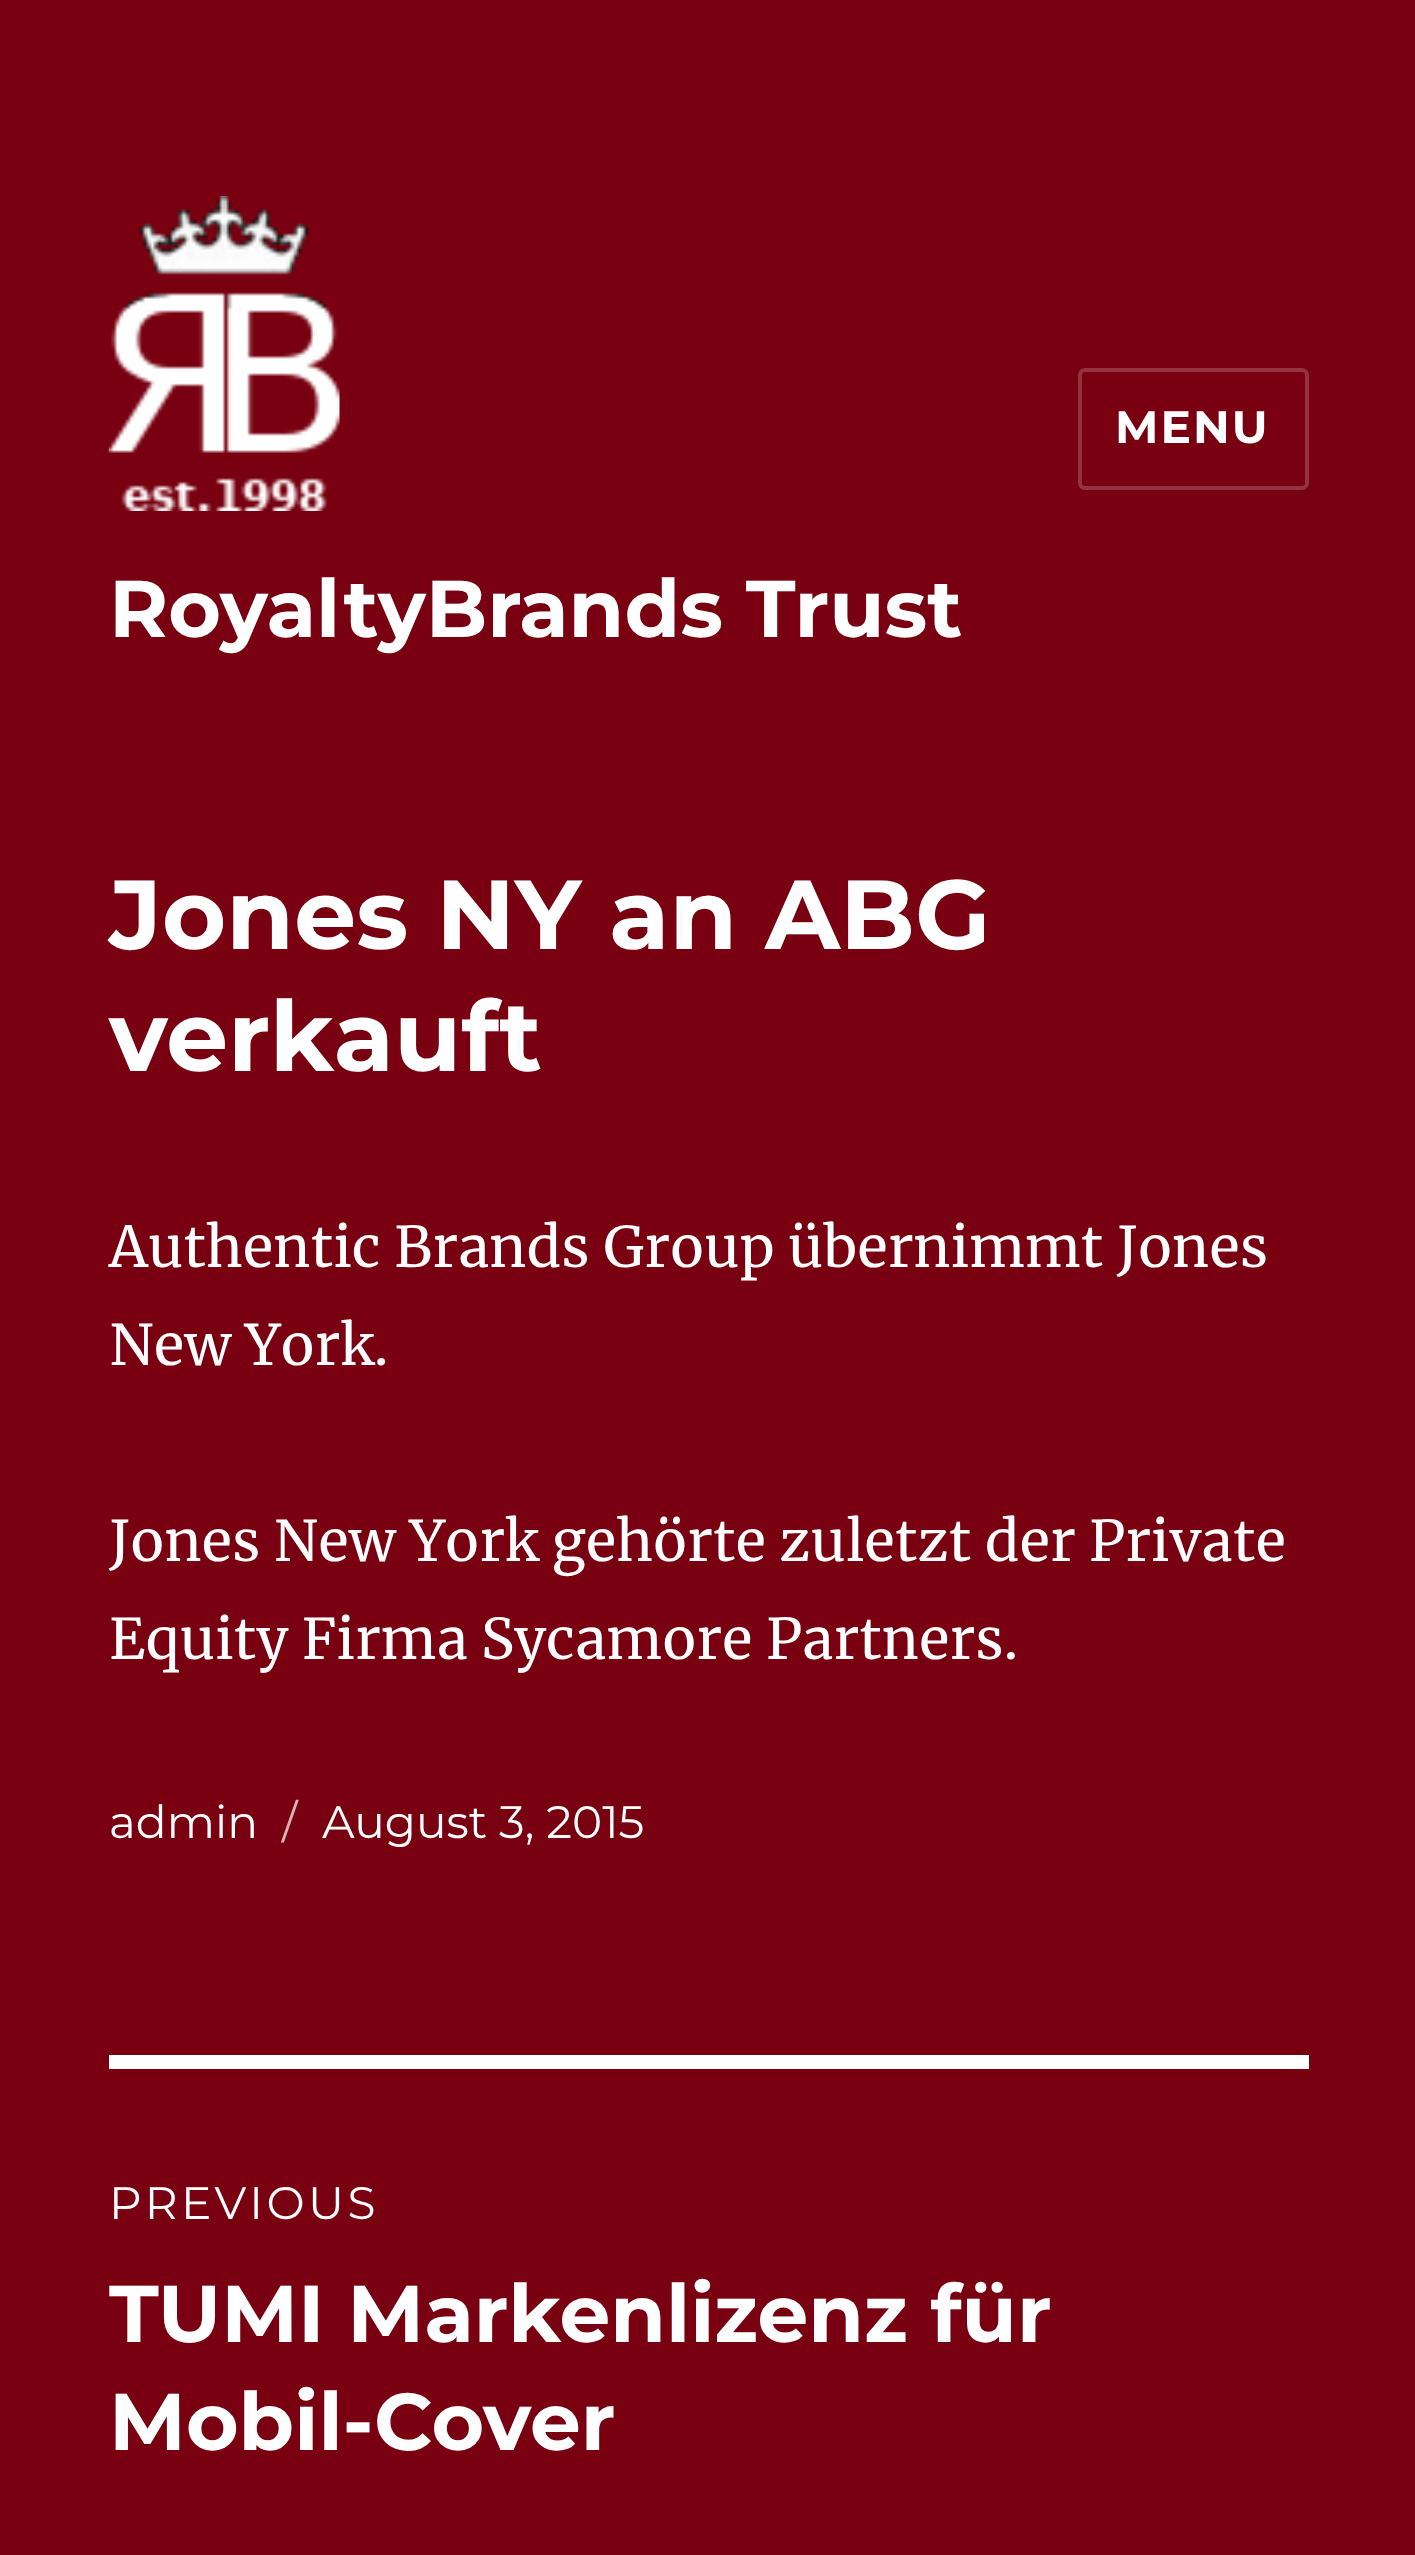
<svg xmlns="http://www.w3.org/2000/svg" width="1415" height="2555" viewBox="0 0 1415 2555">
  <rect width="100%" height="100%" fill="#780010"/>
  <rect x="1080" y="370" width="227" height="118" rx="5" fill="none" stroke="#933340" stroke-width="4"/>
  <image x="108" y="196" width="232" height="315" href="img/1.png"/>
  <path d="M109 2055h1200v14H109z" fill="#fff"/>
  <text x="1115" y="443" font-family="Montserrat" font-size="45.5" font-weight="100" letter-spacing="2" fill="#fff">MENU</text>
  <text x="109" y="637" font-family="Montserrat" font-size="80.5" font-weight="100" fill="#fff">RoyaltyBrands Trust</text>
  <g font-family="Montserrat" font-size="98" font-weight="100" fill="#fff">
    <text x="109" y="949">Jones NY an ABG</text>
    <text x="109" y="1071">verkauft</text>
  </g>
  <g font-family="Merriweather" font-size="56" fill="#fff">
    <text x="109" y="1267">Authentic Brands Group übernimmt Jones</text>
    <text x="109" y="1365">New York.</text>
    <text x="109" y="1561">Jones New York gehörte zuletzt der Private</text>
    <text x="109" y="1659">Equity Firma Sycamore Partners.</text>
  </g>
  <text x="109" y="1838" font-family="'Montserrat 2'" font-size="45.5" font-weight="100" fill="#fff">admin</text>
  <text x="282" y="1838" font-family="'Montserrat 2'" font-size="45.5" font-weight="100" fill="#d7b3b7">/</text>
  <text x="322" y="1838" font-family="'Montserrat 2'" font-size="45.5" font-weight="100" fill="#fff">August 3, 2015</text>
  <text x="109" y="2219" font-family="'Montserrat 2'" font-size="45.5" font-weight="100" letter-spacing="3.5" fill="#fff">PREVIOUS</text>
  <g font-family="Montserrat" font-size="80.5" font-weight="100" fill="#fff">
    <text x="109" y="2342">TUMI Markenlizenz für</text>
    <text x="109" y="2450">Mobil-Cover</text>
  </g>
</svg>
